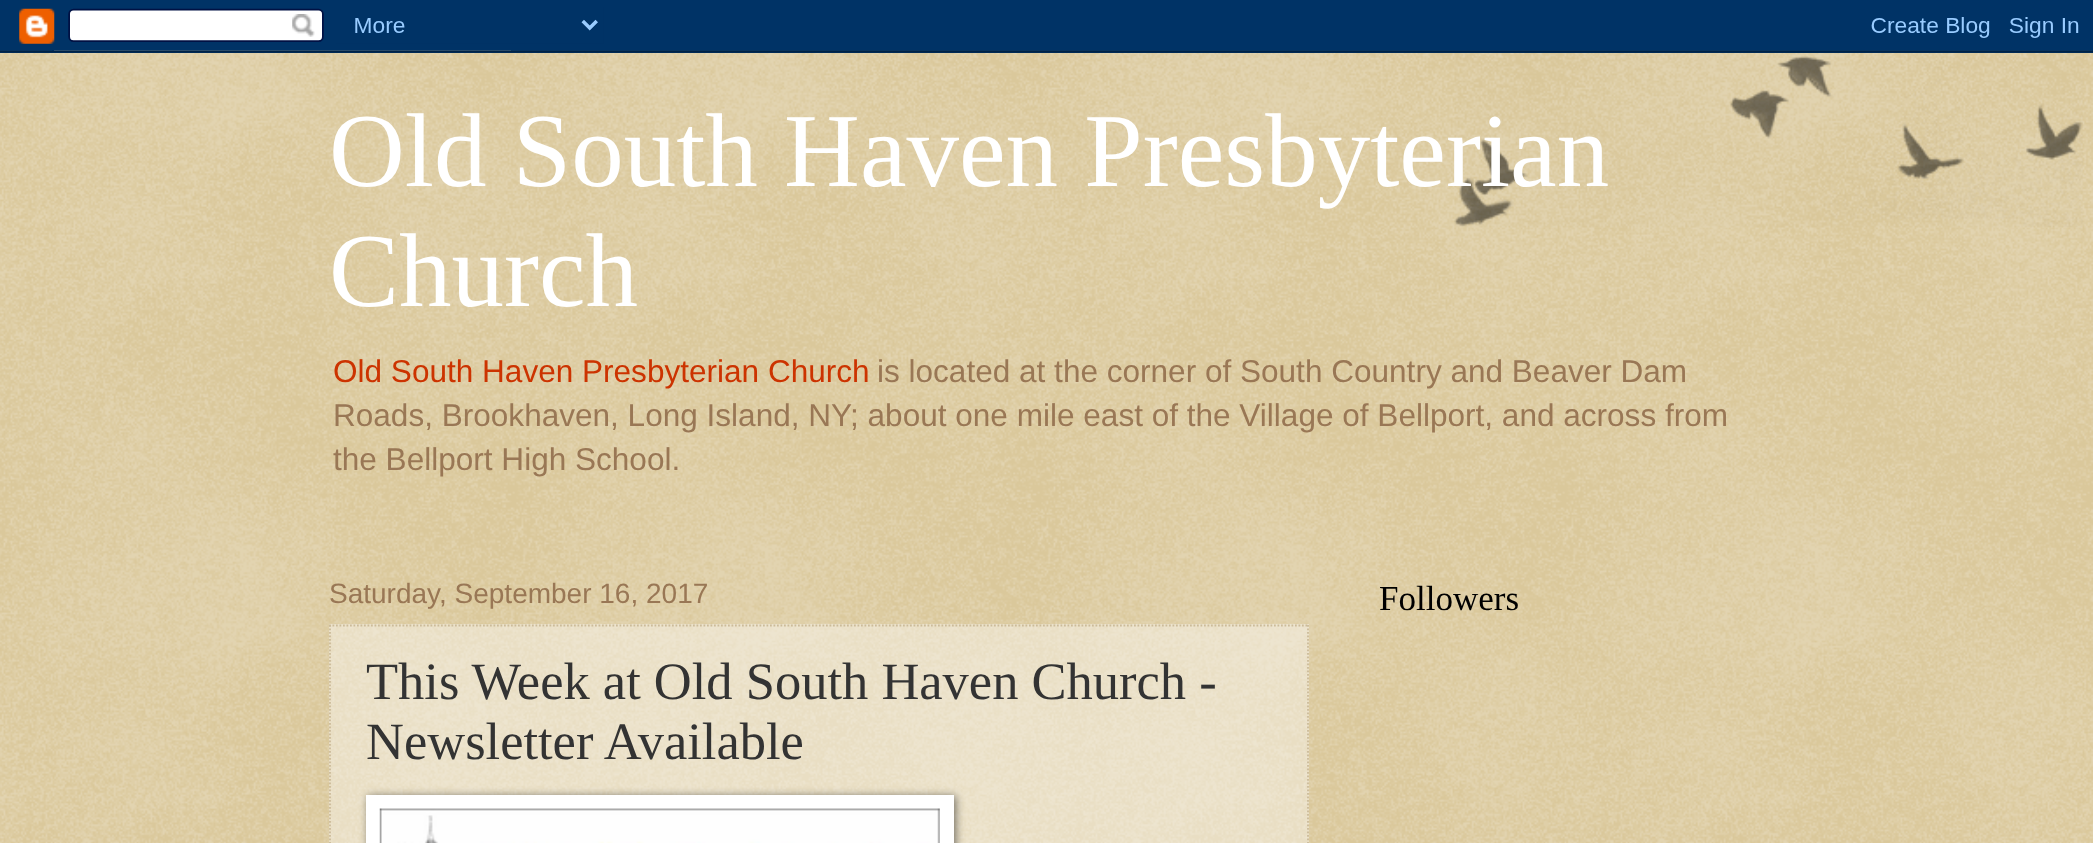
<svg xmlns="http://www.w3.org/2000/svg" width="2093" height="843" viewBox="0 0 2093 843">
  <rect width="100%" height="100%" fill="#c0a154"/>
  <image x="0" y="50" width="2093" height="793" href="img/2.png"/>
  <image x="0" y="0" width="2093" height="53" href="img/1.png"/>
  <image x="1454" y="56" width="629" height="171" href="img/3.png"/>
  <path d="M329 624h980v219H329z" fill="#ffffff66"/>
  <path d="M329 625.5H1309" fill="none" stroke="#cb9" stroke-width="1.8" stroke-dasharray="1.75 1.75"/>
  <path d="M1308 625V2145.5" fill="none" stroke="#cb9" stroke-width="1.8" stroke-dasharray="1.75 1.75"/>
  <path d="M330 625V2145.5" fill="none" stroke="#cb9" stroke-width="1.8" stroke-dasharray="1.75 1.75"/>
  <path d="M368 796h588v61H368z" fill="#00000080" filter="blur(4.5px)"/>
  <path d="M366 795h588v48H366z" fill="#fff"/>
  <image x="379" y="808" width="561" height="35" href="img/4.png"/>
  <g font-family="Liberation Serif" font-size="105" fill="#fff">
    <text x="329" y="186">Old South Haven Presbyterian</text>
    <text x="329" y="306">Church</text>
  </g>
  <text x="333" y="382" font-family="Liberation Sans" font-size="31.55" fill="#c30">Old South Haven Presbyterian Church</text>
  <g font-family="Liberation Sans" font-size="31.55" fill="#975">
    <text x="877" y="382">is located at the corner of South Country and Beaver Dam</text>
    <text x="333" y="426">Roads, Brookhaven, Long Island, NY; about one mile east of the Village of Bellport, and across from</text>
    <text x="333" y="470">the Bellport High School.</text>
  </g>
  <text x="329" y="603" font-family="Liberation Sans" font-size="28" fill="#975">Saturday, September 16, 2017</text>
  <g font-family="Liberation Serif" font-size="52.5" fill="#333">
    <text x="366" y="699">This Week at Old South Haven Church -</text>
    <text x="366" y="759">Newsletter Available</text>
  </g>
  <text x="1379" y="610" font-family="Liberation Serif" font-size="35" fill="#000">Followers</text>
</svg>
